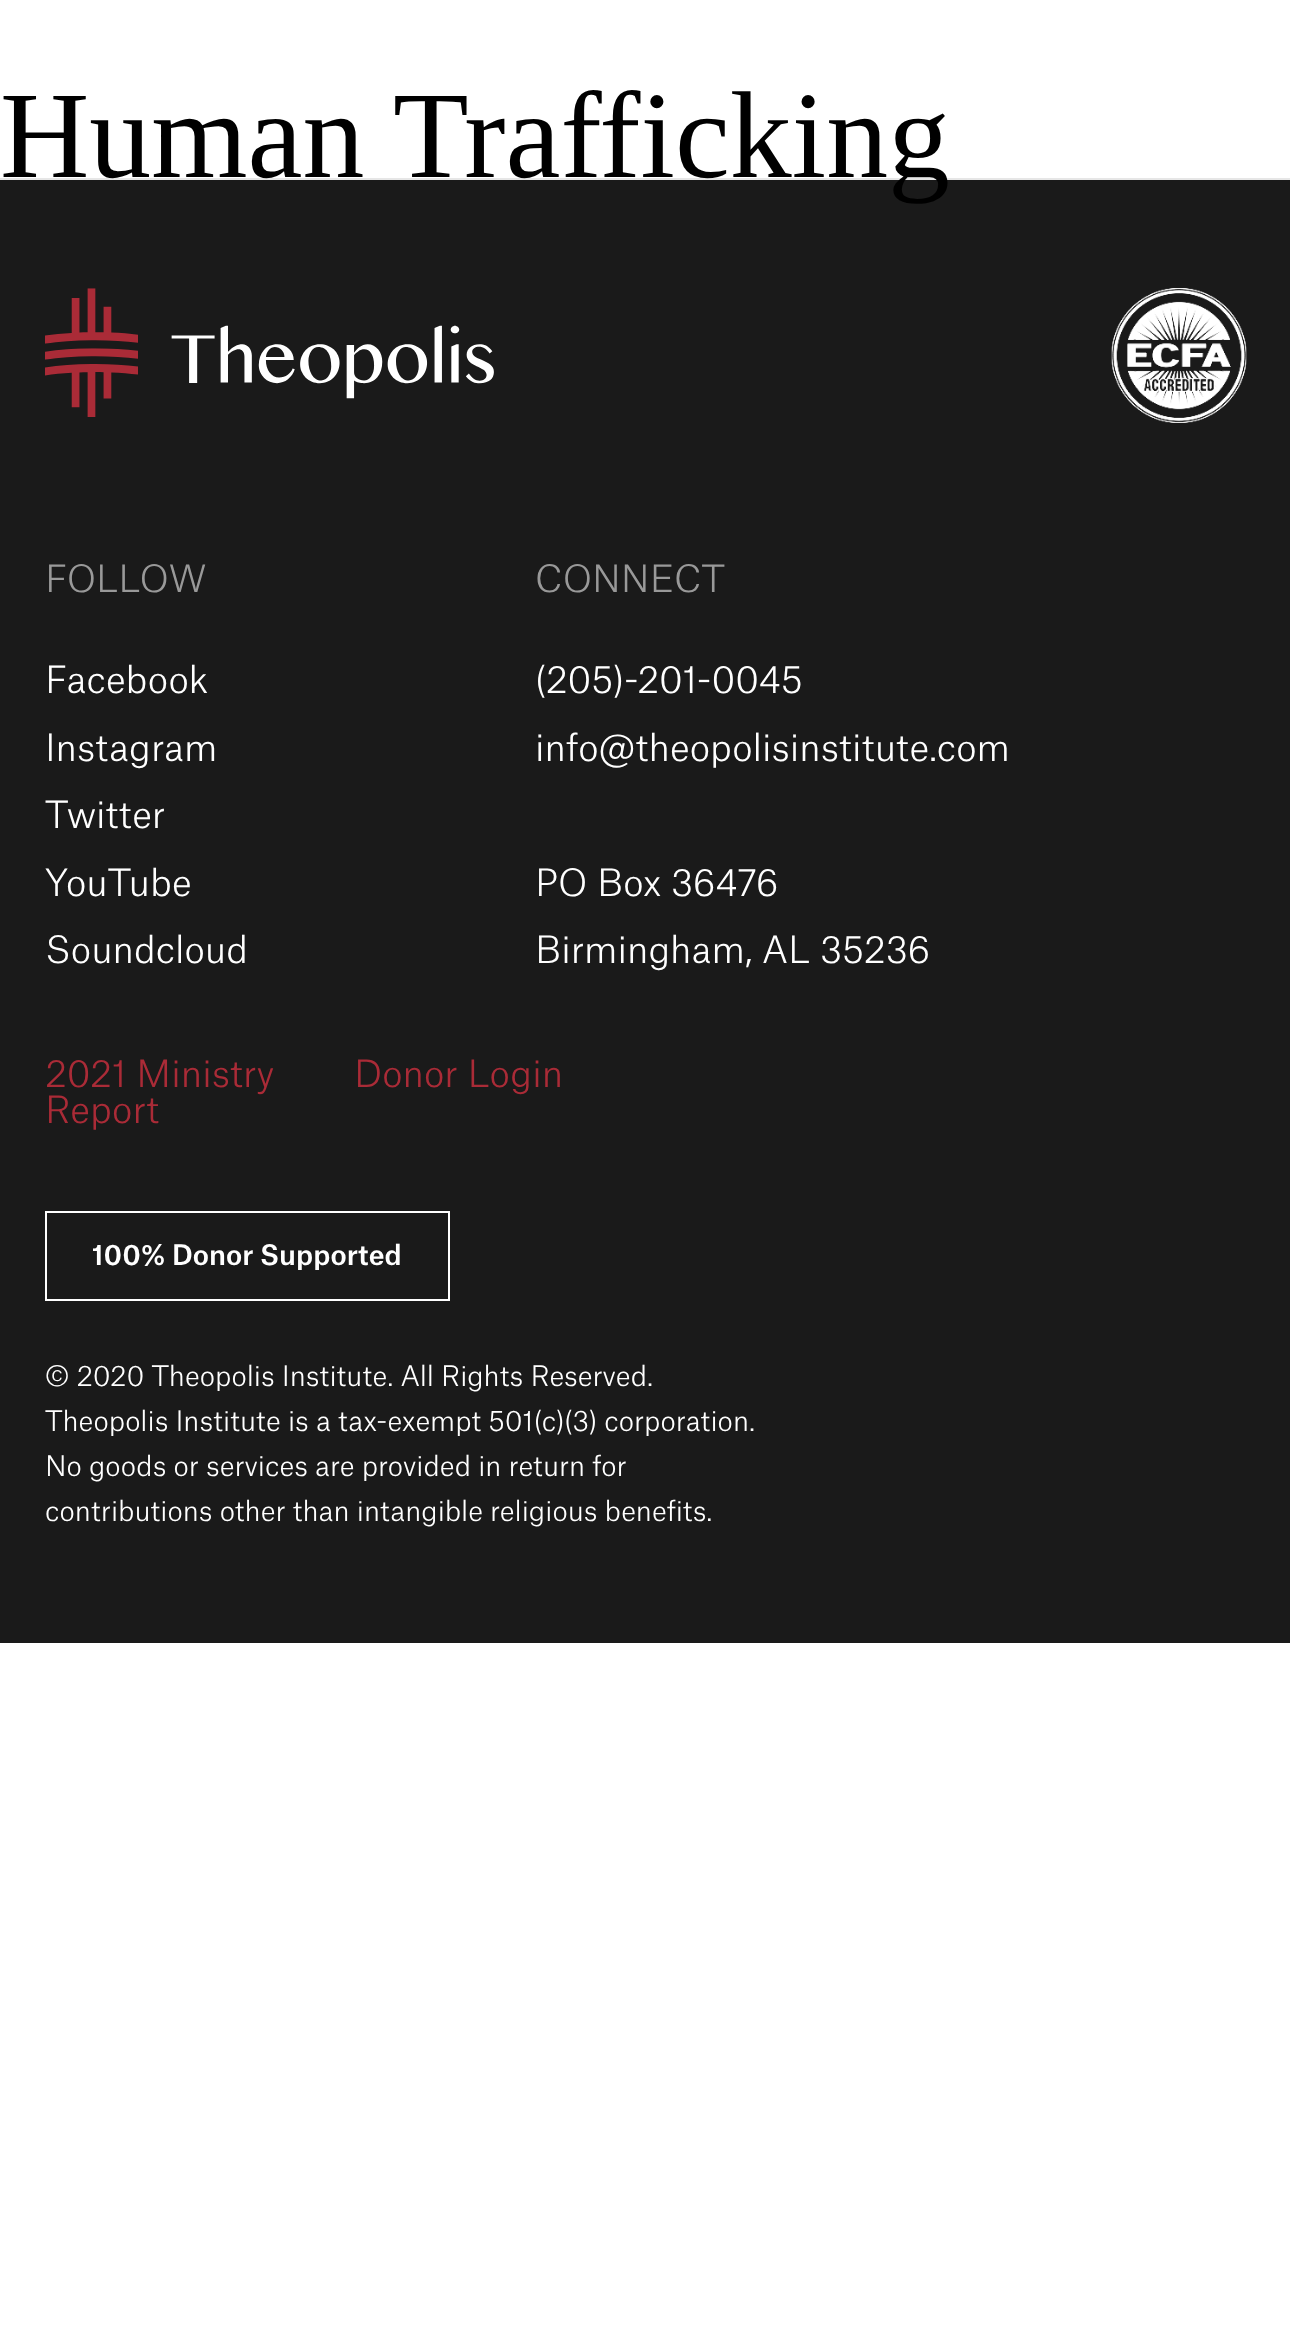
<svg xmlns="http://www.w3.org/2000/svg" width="1290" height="2346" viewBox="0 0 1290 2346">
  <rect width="100%" height="100%" fill="#fff"/>
  <path d="M0 178h1290v2H0z" fill="#e6e6e6"/>
  <path d="M0 180h1290v1463H0z" fill="#1a1a1a"/>
  <image x="45" y="288" width="449" height="129" href="img/1.png"/>
  <image x="1111" y="288" width="136" height="135" href="img/2.png"/>
  <path d="M46 1212h403v88H46z" fill="none" stroke="#fff" stroke-width="2"/>
  <text x="0" y="177" font-family="Liberation Serif" font-size="123.75" fill="#000">Human Trafficking</text>
  <text x="45" y="592" font-family="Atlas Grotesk" font-size="36" font-weight="300" fill="#999">FOLLOW</text>
  <g font-family="Atlas Grotesk" font-size="36" font-weight="300" fill="#fff">
    <text x="45" y="693">Facebook</text>
    <text x="45" y="761">Instagram</text>
    <text x="45" y="828">Twitter</text>
    <text x="45" y="896">YouTube</text>
    <text x="45" y="963">Soundcloud</text>
  </g>
  <text x="535" y="592" font-family="Atlas Grotesk" font-size="36" font-weight="300" fill="#999">CONNECT</text>
  <g font-family="Atlas Grotesk" font-size="36" font-weight="300" fill="#fff">
    <text x="535" y="693">(205)-201-0045</text>
    <text x="535" y="761">info@theopolisinstitute.com</text>
    <text x="535" y="896">PO Box 36476</text>
    <text x="535" y="963">Birmingham, AL 35236</text>
  </g>
  <g font-family="Atlas Grotesk" font-size="36" font-weight="300" fill="#aa2b37">
    <text x="45" y="1087">2021 Ministry</text>
    <text x="45" y="1123">Report</text>
    <text x="354" y="1087">Donor Login</text>
  </g>
  <text x="92" y="1265" font-family="Atlas Grotesk" font-size="27" font-weight="500" fill="#fff">100% Donor Supported</text>
  <g font-family="Atlas Grotesk" font-size="27" font-weight="300" fill="#fff">
    <text x="45" y="1386">© 2020 Theopolis Institute. All Rights Reserved.</text>
    <text x="45" y="1431">Theopolis Institute is a tax-exempt 501(c)(3) corporation.</text>
    <text x="45" y="1476">No goods or services are provided in return for</text>
    <text x="45" y="1521">contributions other than intangible religious benefits.</text>
  </g>
</svg>
